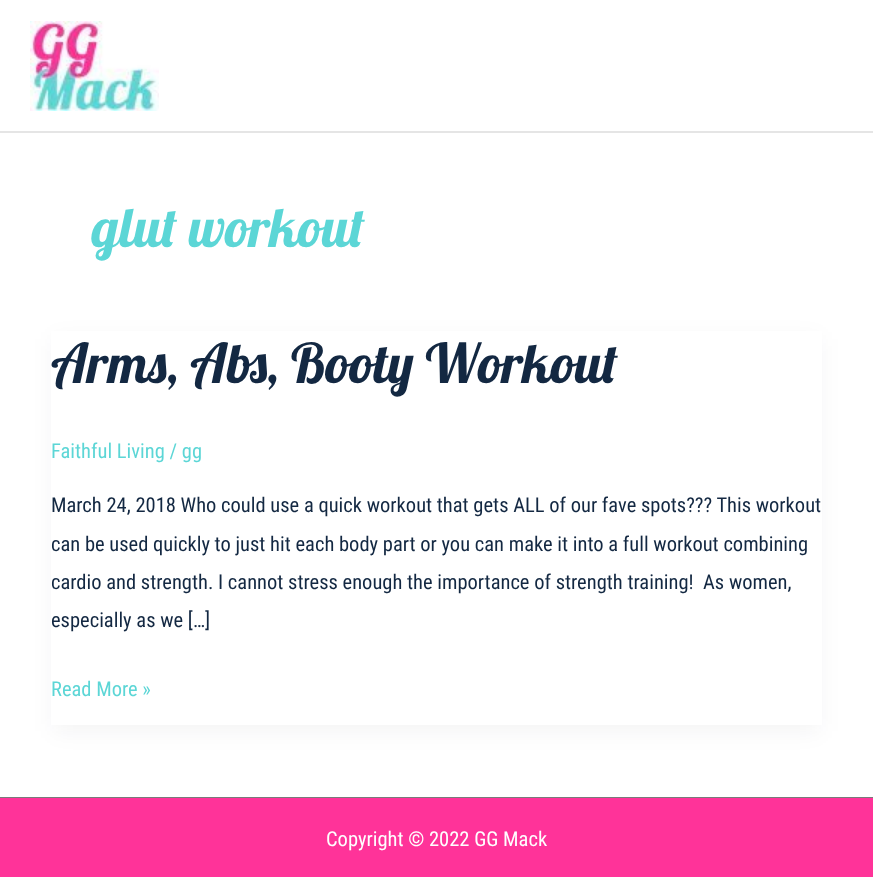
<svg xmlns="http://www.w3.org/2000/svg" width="873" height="877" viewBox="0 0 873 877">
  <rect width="100%" height="100%" fill="#fff"/>
  <path d="M0 131h873v2H0z" fill="#e5e5e5"/>
  <image x="30" y="21" width="129" height="90" href="img/1.png"/>
  <path d="M54 339h765v392H54z" fill="#1018280d" filter="blur(11px)"/>
  <path d="M51 331h771v394H51z" fill="#fff"/>
  <path d="M0 797h873v1H0z" fill="#7a7a7a"/>
  <path d="M0 798h873v79H0z" fill="#f39"/>
  <text x="92" y="247" font-family="Lobster" font-size="54.75" fill="#5cd6d6">glut workout</text>
  <text x="51" y="383" font-family="Lobster" font-size="54.75" fill="#132842">Arms, Abs, Booty Workout</text>
  <text x="51" y="458" font-family="Roboto Condensed" font-size="20.5" fill="#5cd6d6">Faithful Living / gg</text>
  <g font-family="Roboto Condensed" font-size="20.5" fill="#132842">
    <text x="51" y="512">March 24, 2018 Who could use a quick workout that gets ALL of our fave spots??? This workout</text>
    <text x="51" y="551">can be used quickly to just hit each body part or you can make it into a full workout combining</text>
    <text x="51" y="589" xml:space="preserve">cardio and strength. I cannot stress enough the importance of strength training!  As women,</text>
    <text x="51" y="627">especially as we […]</text>
  </g>
  <text x="51" y="696" font-family="Roboto Condensed" font-size="20.5" fill="#5cd6d6">Read More »</text>
  <text x="326" y="846" font-family="Roboto Condensed" font-size="20.5" fill="#fff">Copyright © 2022 GG Mack</text>
</svg>
